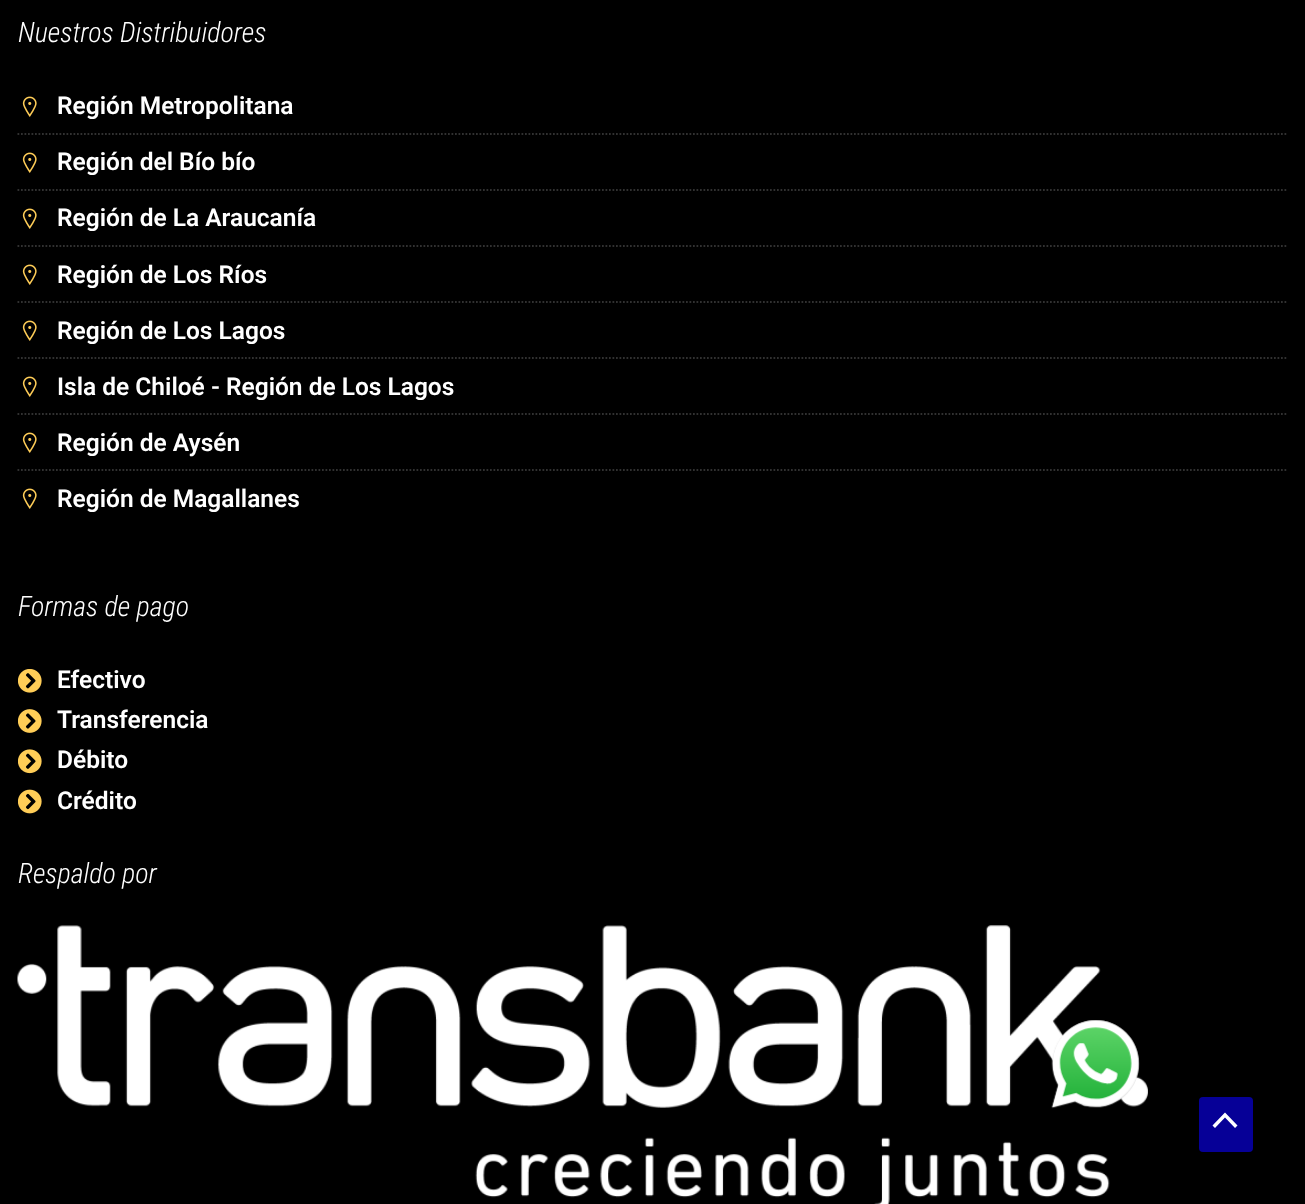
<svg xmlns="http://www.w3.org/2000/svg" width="1305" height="1204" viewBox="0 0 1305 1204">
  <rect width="100%" height="100%" fill="#000"/>
  <image x="22" y="96" width="15" height="21" href="img/1.png"/>
  <path d="M17.5 134H1288" fill="none" stroke="#313131" stroke-width="1.8" stroke-dasharray="1.75 1.75"/>
  <image x="22" y="152" width="15" height="21" href="img/1.png"/>
  <path d="M17.5 190H1288" fill="none" stroke="#313131" stroke-width="1.8" stroke-dasharray="1.75 1.75"/>
  <image x="22" y="208" width="15" height="21" href="img/1.png"/>
  <path d="M17.5 246H1288" fill="none" stroke="#313131" stroke-width="1.8" stroke-dasharray="1.75 1.75"/>
  <image x="22" y="264" width="15" height="21" href="img/1.png"/>
  <path d="M17.5 302H1288" fill="none" stroke="#313131" stroke-width="1.8" stroke-dasharray="1.75 1.75"/>
  <image x="22" y="320" width="15" height="21" href="img/1.png"/>
  <path d="M17.5 358H1288" fill="none" stroke="#313131" stroke-width="1.8" stroke-dasharray="1.75 1.75"/>
  <image x="22" y="376" width="15" height="21" href="img/1.png"/>
  <path d="M17.5 414H1288" fill="none" stroke="#313131" stroke-width="1.8" stroke-dasharray="1.75 1.75"/>
  <image x="22" y="432" width="15" height="21" href="img/1.png"/>
  <path d="M17.5 470H1288" fill="none" stroke="#313131" stroke-width="1.8" stroke-dasharray="1.75 1.75"/>
  <image x="22" y="488" width="15" height="21" href="img/1.png"/>
  <image x="18" y="669" width="24" height="24" href="img/2.png"/>
  <image x="18" y="709" width="24" height="24" href="img/3.png"/>
  <image x="18" y="749" width="24" height="25" href="img/4.png"/>
  <image x="18" y="789" width="24" height="25" href="img/5.png"/>
  <image x="17" y="925" width="1131" height="279" href="img/6.png"/>
  <image x="1051" y="1020" width="89" height="89" href="img/7.png"/>
  <rect x="1199" y="1097" width="54" height="55" rx="4" fill="#060097"/>
  <path d="M1237.5 1125.5L1225 1112.5L1212.5 1125.5L1215 1128L1225 1117.5L1235 1128Z" fill="#fff"/>
  <text x="18" y="42" font-family="Roboto Condensed" font-size="28" font-weight="300" font-style="italic" fill="#fff">Nuestros Distribuidores</text>
  <g font-family="Roboto" font-size="24.5" font-weight="600" fill="#fff">
    <text x="57" y="114">Región Metropolitana</text>
    <text x="57" y="170">Región del Bío bío</text>
    <text x="57" y="226">Región de La Araucanía</text>
    <text x="57" y="283">Región de Los Ríos</text>
    <text x="57" y="339">Región de Los Lagos</text>
    <text x="57" y="395">Isla de Chiloé - Región de Los Lagos</text>
    <text x="57" y="451">Región de Aysén</text>
    <text x="57" y="507">Región de Magallanes</text>
  </g>
  <text x="18" y="616" font-family="Roboto Condensed" font-size="28" font-weight="300" font-style="italic" fill="#fff">Formas de pago</text>
  <g font-family="Roboto" font-size="24.5" font-weight="600" fill="#fff">
    <text x="57" y="688">Efectivo</text>
    <text x="57" y="728">Transferencia</text>
    <text x="57" y="768">Débito</text>
    <text x="57" y="809">Crédito</text>
  </g>
  <text x="18" y="883" font-family="Roboto Condensed" font-size="28" font-weight="300" font-style="italic" fill="#fff">Respaldo por</text>
</svg>
